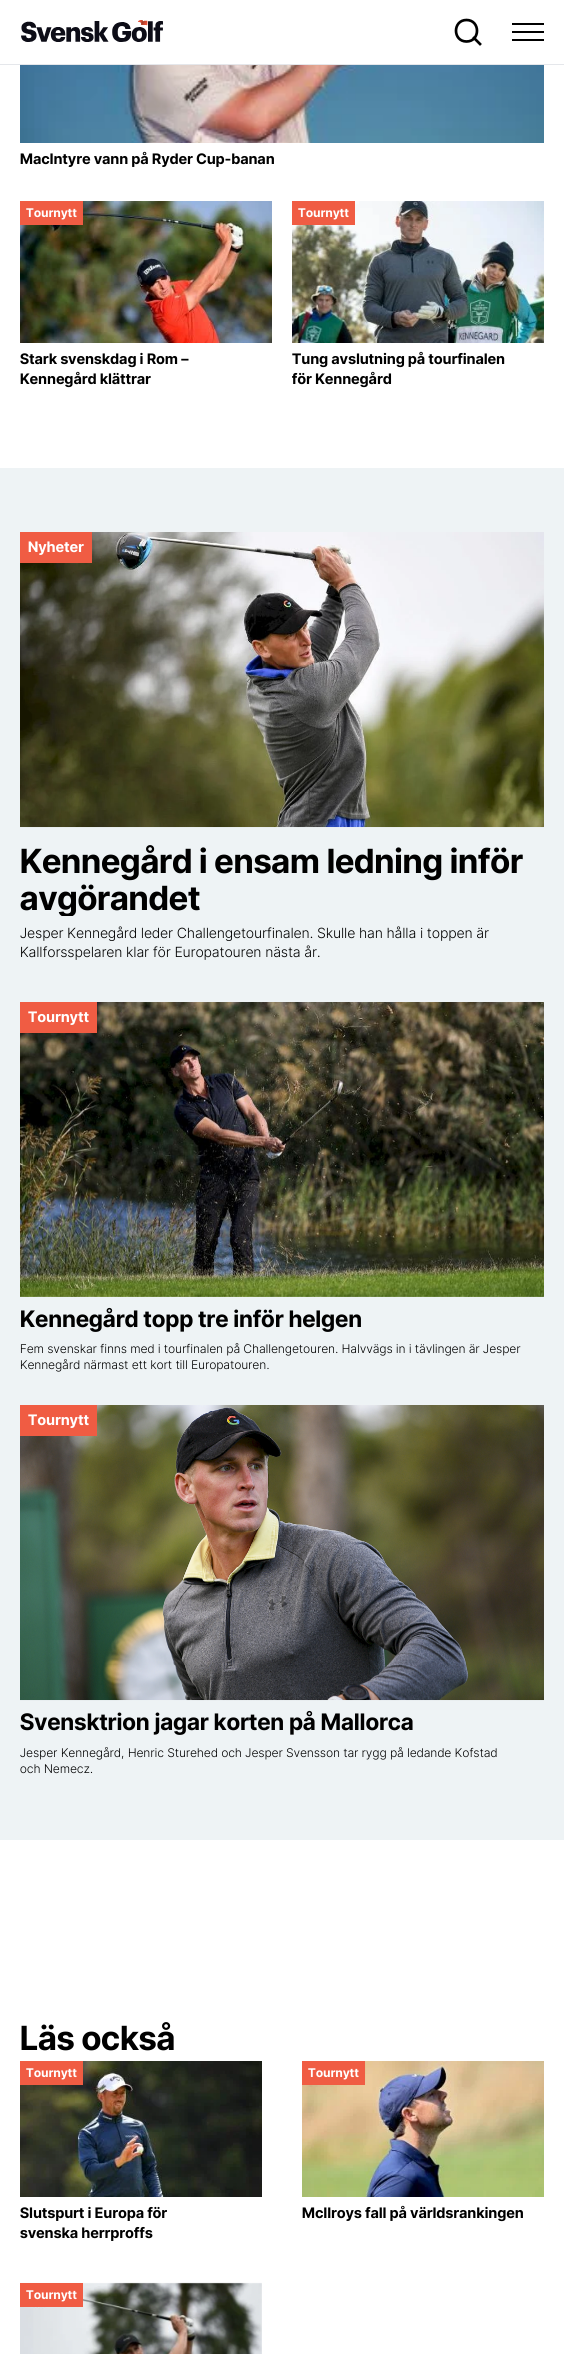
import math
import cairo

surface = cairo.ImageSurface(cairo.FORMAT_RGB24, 564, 2354)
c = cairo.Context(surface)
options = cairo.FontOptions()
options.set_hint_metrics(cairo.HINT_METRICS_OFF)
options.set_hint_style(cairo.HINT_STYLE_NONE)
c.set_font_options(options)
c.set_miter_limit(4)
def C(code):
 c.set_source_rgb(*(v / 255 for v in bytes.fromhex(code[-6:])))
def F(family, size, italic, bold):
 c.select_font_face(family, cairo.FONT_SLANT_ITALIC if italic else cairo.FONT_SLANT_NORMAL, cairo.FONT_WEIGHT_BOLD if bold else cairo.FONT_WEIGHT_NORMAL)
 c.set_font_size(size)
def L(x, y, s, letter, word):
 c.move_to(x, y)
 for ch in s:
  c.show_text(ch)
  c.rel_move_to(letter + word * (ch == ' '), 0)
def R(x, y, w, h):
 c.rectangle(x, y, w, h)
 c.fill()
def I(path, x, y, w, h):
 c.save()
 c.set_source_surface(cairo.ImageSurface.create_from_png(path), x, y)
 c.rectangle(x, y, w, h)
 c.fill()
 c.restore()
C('ffffff')
c.paint()
C('e5e7eb')
R(0,64,564,1)
I('1.png',21,20,142,22)
c.new_path()
c.move_to(466.5,41.5)
c.curve_to(480.5,41.5,480.5,20,466.5,20)
c.curve_to(452.5,20,452.5,41.5,466.5,41.5)
c.close_path()
C('000000')
c.set_line_width(2.7)
c.set_line_cap(cairo.LINE_CAP_ROUND)
c.set_line_join(cairo.LINE_JOIN_ROUND)
c.stroke()
c.new_path()
c.move_to(480,44)
c.line_to(474,38)
c.set_line_cap(cairo.LINE_CAP_SQUARE)
c.stroke()
R(512,23,32,2)
R(512,31,32,2)
R(512,39,32,2)
I('2.png',20,65,524,78)
F('Inter Tight',14.5,0,1)
L(20,164,'MacIntyre vann på Ryder Cup-banan',.32,0)
I('3.png',20,201,252,142)
C('f05c43')
R(20,201,63,24)
F('Inter Tight',12,0,1)
C('ffffff')
L(26,217,'Tournytt',.32,0)
F('Inter Tight',14.5,0,1)
C('000000')
L(20,364,'Stark svenskdag i Rom –',.32,0)
L(20,384,'Kennegård klättrar',.32,0)
I('4.png',292,201,252,142)
C('f05c43')
R(292,201,63,24)
F('Inter Tight',12,0,1)
C('ffffff')
L(298,217,'Tournytt',.32,0)
F('Inter Tight',14.5,0,1)
C('000000')
L(292,364,'Tung avslutning på tourfinalen',.32,0)
L(292,384,'för Kennegård',.32,0)
C('eef3f5')
R(0,468,564,1372)
I('5.png',20,532,524,296)
C('f05c43')
R(20,532,72,31)
C('ffffff')
L(28,552,'Nyheter',.32,0)
F('Inter Tight',33.3,0,1)
C('000000')
L(20,873,'Kennegård i ensam ledning inför',.32,0)
c.save()
c.rectangle(20,843,524,73)
c.clip()
L(20,910,'avgörandet',.32,0)
c.restore()
F('Inter Tight Light',14,0,0)
L(20,938,'Jesper Kennegård leder Challengetourfinalen. Skulle han hålla i toppen är',.32,0)
L(20,957,'Kallforsspelaren klar för Europatouren nästa år.',.32,0)
I('6.png',20,1002,524,295)
C('f05c43')
R(20,1002,77,31)
F('Inter Tight',14.5,0,1)
C('ffffff')
L(28,1022,'Tournytt',.32,0)
F('Inter Tight',22.75,0,1)
C('000000')
L(20,1327,'Kennegård topp tre inför helgen',.32,0)
F('Inter Tight Light',12,0,0)
L(20,1353,'Fem svenskar finns med i tourfinalen på Challengetouren. Halvvägs in i tävlingen är Jesper',.32,0)
L(20,1369,'Kennegård närmast ett kort till Europatouren.',.32,0)
I('7.png',20,1405,524,296)
C('f05c43')
R(20,1405,77,31)
F('Inter Tight',14.5,0,1)
C('ffffff')
L(28,1425,'Tournytt',.32,0)
F('Inter Tight',22.75,0,1)
C('000000')
L(20,1730,'Svensktrion jagar korten på Mallorca',.32,0)
F('Inter Tight Light',12,0,0)
L(20,1757,'Jesper Kennegård, Henric Sturehed och Jesper Svensson tar rygg på ledande Kofstad',.32,0)
L(20,1773,'och Nemecz.',.32,0)
F('Inter Tight',33.3,0,1)
L(20,2050,'Läs också',.32,0)
I('8.png',20,2061,242,136)
C('f05c43')
R(20,2061,63,24)
F('Inter Tight',12,0,1)
C('ffffff')
L(26,2077,'Tournytt',.32,0)
F('Inter Tight',14.5,0,1)
C('000000')
L(20,2218,'Slutspurt i Europa för',.32,0)
L(20,2238,'svenska herrproffs',.32,0)
I('9.png',302,2061,242,136)
C('f05c43')
R(302,2061,63,24)
F('Inter Tight',12,0,1)
C('ffffff')
L(308,2077,'Tournytt',.32,0)
F('Inter Tight',14.5,0,1)
C('000000')
L(302,2218,'McIlroys fall på världsrankingen',.32,0)
I('10.png',20,2282,242,72)
C('f05c43')
R(20,2283,63,24)
F('Inter Tight',12,0,1)
C('ffffff')
L(26,2299,'Tournytt',.32,0)
surface.write_to_png('o.png')
